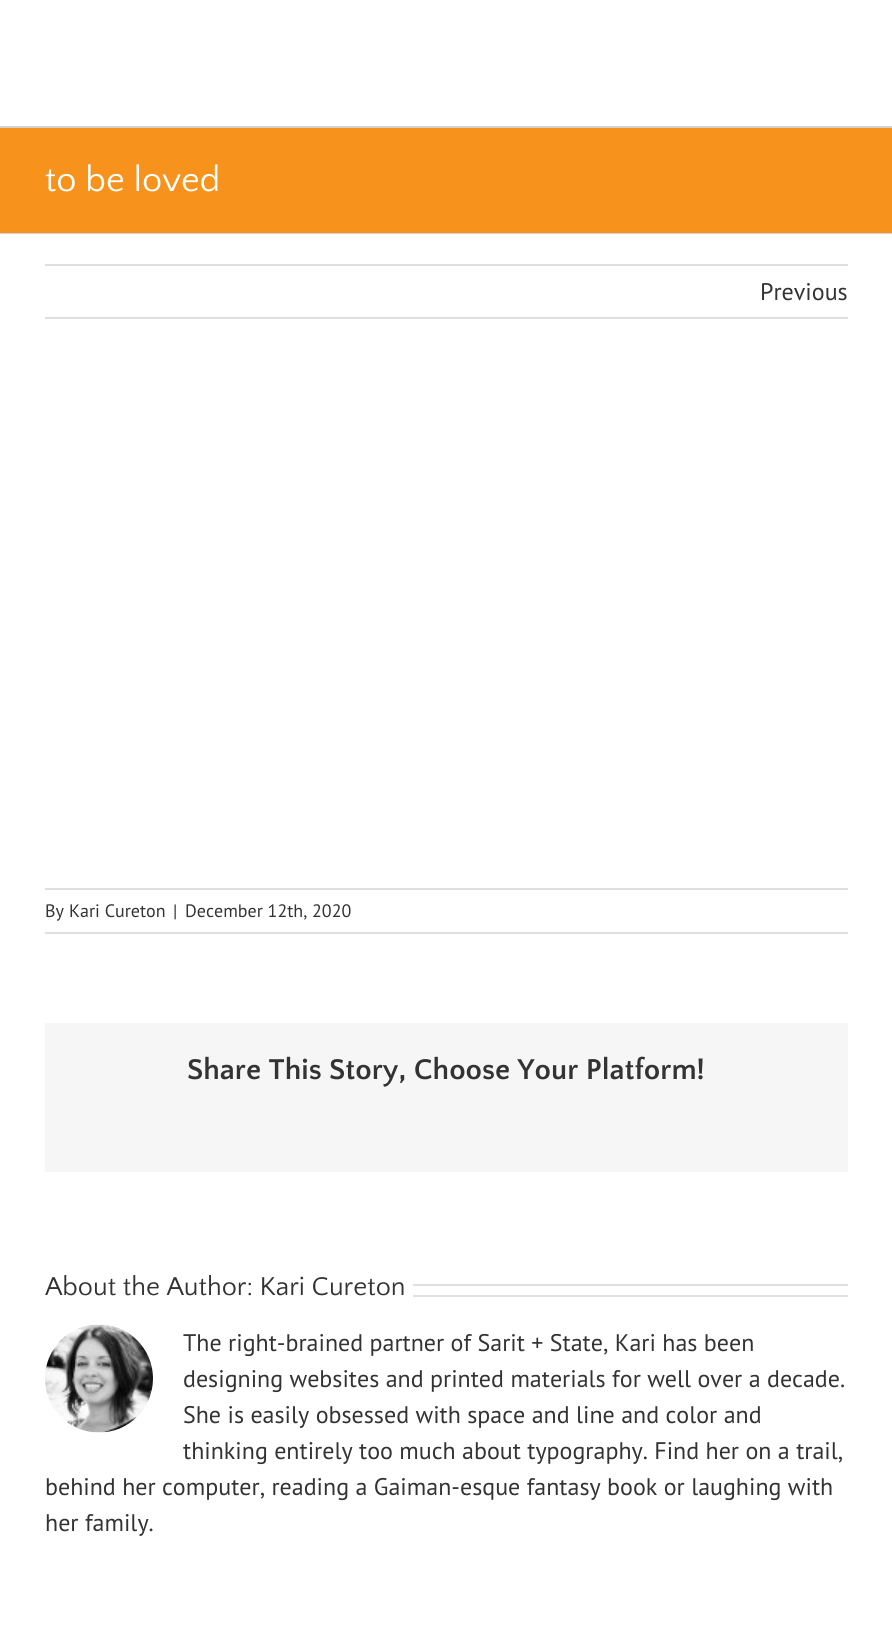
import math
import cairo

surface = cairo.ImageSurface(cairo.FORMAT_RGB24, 892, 1629)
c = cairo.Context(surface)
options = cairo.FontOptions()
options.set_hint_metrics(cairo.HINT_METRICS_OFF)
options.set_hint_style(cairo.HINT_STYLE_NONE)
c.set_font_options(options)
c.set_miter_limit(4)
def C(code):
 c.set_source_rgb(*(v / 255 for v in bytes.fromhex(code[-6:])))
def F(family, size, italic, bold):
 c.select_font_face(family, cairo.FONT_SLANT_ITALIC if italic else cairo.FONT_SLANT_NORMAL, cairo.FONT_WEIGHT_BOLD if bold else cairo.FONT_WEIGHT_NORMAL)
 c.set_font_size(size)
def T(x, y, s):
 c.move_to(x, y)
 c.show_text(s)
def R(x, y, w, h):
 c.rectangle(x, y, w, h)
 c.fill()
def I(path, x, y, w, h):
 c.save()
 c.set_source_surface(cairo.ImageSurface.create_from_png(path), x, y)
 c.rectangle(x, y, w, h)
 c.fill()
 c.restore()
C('ffffff')
c.paint()
C('f7931d')
R(0,128,892,105)
C('d2d3d4')
R(0,126,892,2)
R(0,233,892,1)
F('Quattrocento Sans',36,0,0)
C('ffffff')
T(45,191,'to be loved')
C('e0dede')
R(45,264,803,2)
R(45,317,803,2)
F('PT Sans',24,0,0)
C('333333')
T(760,300,'Previous')
C('e0dede')
R(45,888,803,2)
R(45,932,803,2)
F('PT Sans',18,0,0)
C('333333')
T(45,917,'By')
T(69,917,'Kari Cureton')
T(173,917,'|')
T(185,917,'December 12th, 2020')
C('f6f6f6')
R(45,1023,803,149)
F('Quattrocento Sans',30,0,1)
C('333333')
T(187,1079,'Share This Story, Choose Your Platform!')
F('Quattrocento Sans',27,0,0)
T(45,1295,'About the Author: Kari Cureton')
C('e0dede')
R(413,1284,435,2)
R(413,1295,435,2)
I('1.png',45,1324,108,109)
F('PT Sans',24,0,0)
C('333333')
T(183,1351,'The right-brained partner of Sarit + State, Kari has been')
T(183,1387,'designing websites and printed materials for well over a decade.')
T(183,1423,'She is easily obsessed with space and line and color and')
T(183,1459,'thinking entirely too much about typography. Find her on a trail,')
T(45,1495,'behind her computer, reading a Gaiman-esque fantasy book or laughing with')
T(45,1531,'her family.')
surface.write_to_png('o.png')
